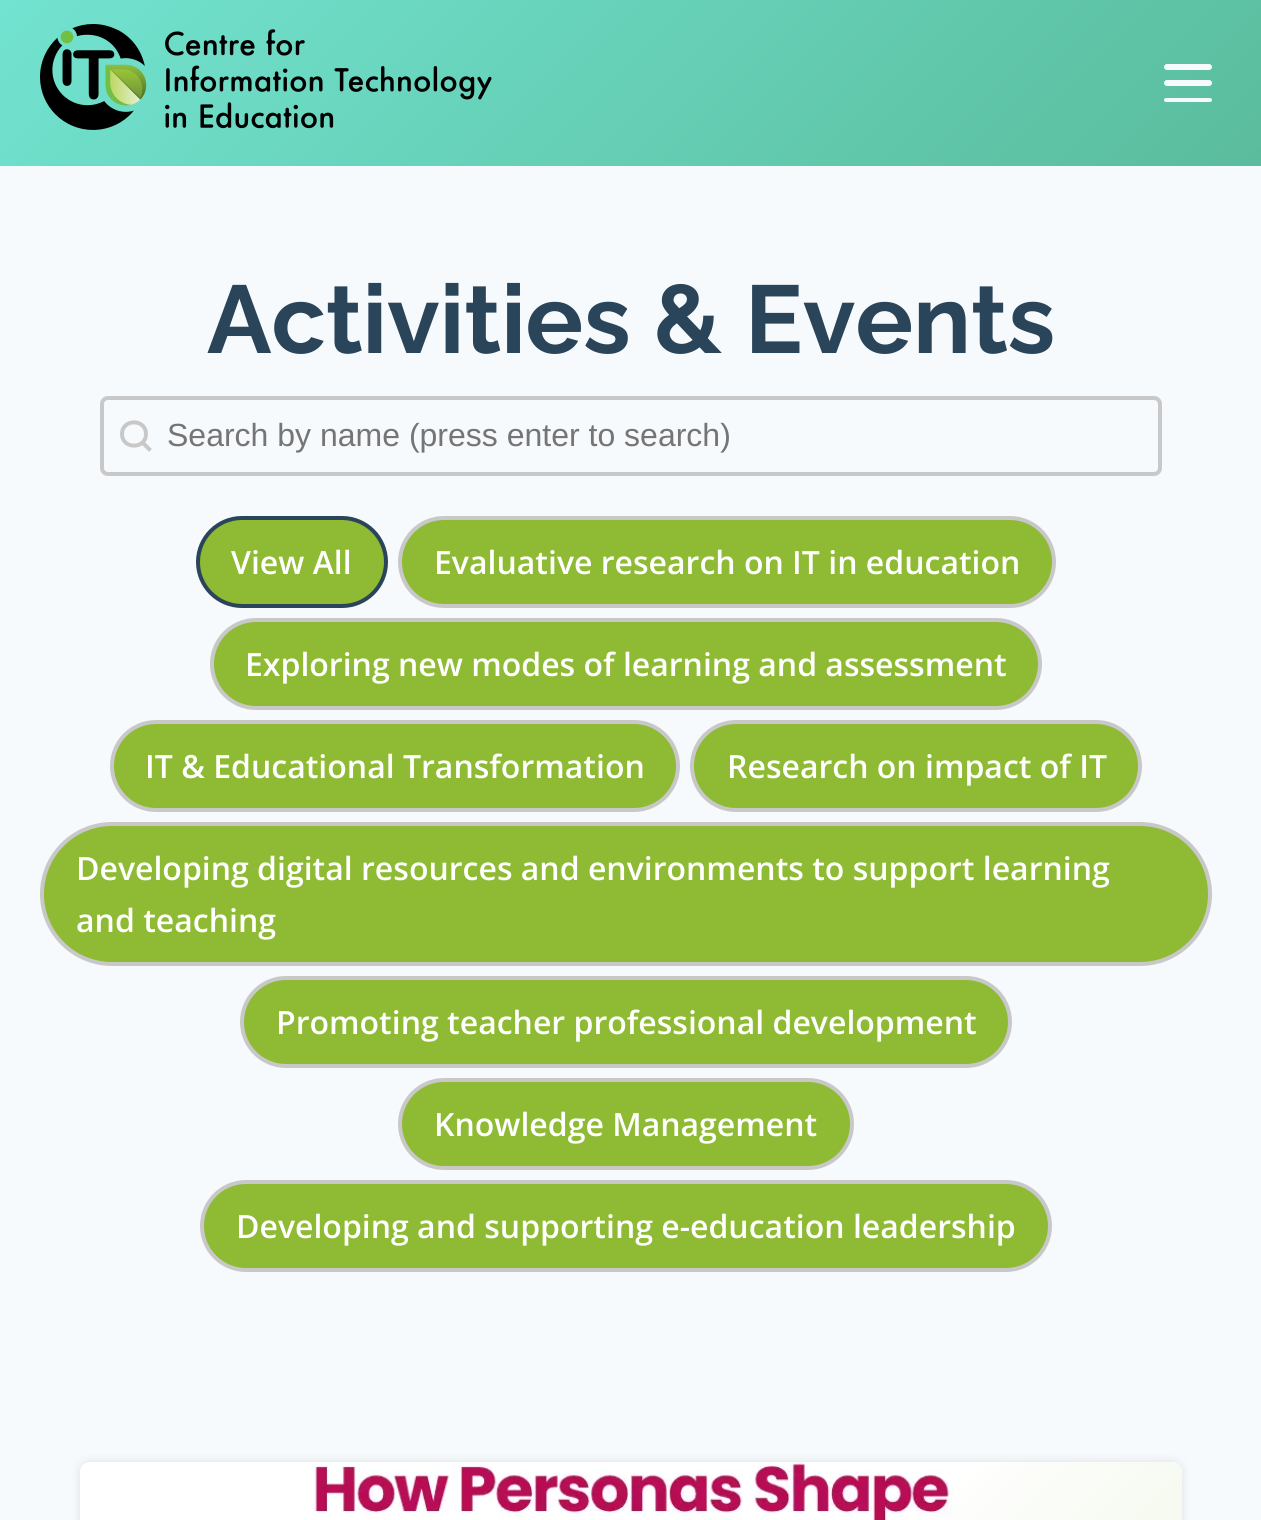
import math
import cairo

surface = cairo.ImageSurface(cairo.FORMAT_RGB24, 1261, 1520)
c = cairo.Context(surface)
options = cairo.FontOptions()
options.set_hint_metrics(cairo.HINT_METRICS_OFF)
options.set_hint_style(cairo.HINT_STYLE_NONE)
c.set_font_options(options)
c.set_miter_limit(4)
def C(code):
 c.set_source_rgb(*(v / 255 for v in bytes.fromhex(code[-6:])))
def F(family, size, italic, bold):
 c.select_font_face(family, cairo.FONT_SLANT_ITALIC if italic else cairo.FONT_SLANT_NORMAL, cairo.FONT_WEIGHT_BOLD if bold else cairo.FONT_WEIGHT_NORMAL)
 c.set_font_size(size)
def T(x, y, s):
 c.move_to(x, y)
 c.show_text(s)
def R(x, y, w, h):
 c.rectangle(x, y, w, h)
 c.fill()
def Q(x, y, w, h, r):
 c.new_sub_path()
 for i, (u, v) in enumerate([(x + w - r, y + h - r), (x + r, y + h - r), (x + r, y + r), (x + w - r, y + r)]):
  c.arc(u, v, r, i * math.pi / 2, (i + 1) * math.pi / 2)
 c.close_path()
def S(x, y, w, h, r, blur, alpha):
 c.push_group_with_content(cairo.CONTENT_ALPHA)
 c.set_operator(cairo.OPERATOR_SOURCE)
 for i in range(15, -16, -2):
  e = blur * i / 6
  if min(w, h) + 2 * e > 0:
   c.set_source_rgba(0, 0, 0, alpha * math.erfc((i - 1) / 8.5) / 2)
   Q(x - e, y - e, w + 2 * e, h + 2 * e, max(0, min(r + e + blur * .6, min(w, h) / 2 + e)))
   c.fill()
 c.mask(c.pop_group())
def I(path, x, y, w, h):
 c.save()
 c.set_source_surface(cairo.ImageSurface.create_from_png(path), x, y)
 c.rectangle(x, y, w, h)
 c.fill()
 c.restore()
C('f6fafd')
c.paint()
gradient = cairo.LinearGradient(274,-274,988,440)
gradient.add_color_stop_rgba(0,0.447,0.89,0.816,1)
gradient.add_color_stop_rgba(1,0.353,0.737,0.612,1)
c.set_source(gradient)
R(0,0,1261,166)
I('1.png',40,24,452,106)
C('f6fafd')
Q(1164,64,48,6,3)
c.fill()
Q(1164,80,48,6,3)
c.fill()
Q(1164,98,48,4,2)
c.fill()
F('Raleway',96,0,1)
C('2a445a')
T(207,353,'Activities & Events')
Q(102,398,1058,76,6)
C('c8c8c8')
c.set_line_width(4)
c.stroke()
c.new_path()
c.move_to(143.5,443.5)
c.line_to(150.5,450.5)
c.close_path()
c.move_to(122,434)
c.curve_to(122,418.5,146,418.5,146,434)
c.curve_to(146,449.5,122,449.5,122,434)
c.close_path()
c.stroke()
F('Liberation Sans',32,0,0)
C('757575')
T(167,446,'Search by name (press enter to search)')
C('8eba34')
Q(198,518,188,88,44)
c.fill_preserve()
C('2a445a')
c.stroke()
F('Open Sans SemiBold',32,0,0)
C('ffffff')
T(231,574,'View All')
C('8eba34')
Q(400,518,654,88,44)
c.fill_preserve()
C('c8c8c8')
c.stroke()
C('ffffff')
T(434,574,'Evaluative research on IT in education')
C('8eba34')
Q(212,620,828,88,44)
c.fill_preserve()
C('c8c8c8')
c.stroke()
C('ffffff')
T(245,676,'Exploring new modes of learning and assessment')
C('8eba34')
Q(112,722,566,88,44)
c.fill_preserve()
C('c8c8c8')
c.stroke()
C('ffffff')
T(145,778,'IT & Educational Transformation')
C('8eba34')
Q(692,722,448,88,44)
c.fill_preserve()
C('c8c8c8')
c.stroke()
C('ffffff')
T(727,778,'Research on impact of IT')
C('8eba34')
Q(42,824,1168,140,70)
c.fill_preserve()
C('c8c8c8')
c.stroke()
C('ffffff')
T(76,880,'Developing digital resources and environments to support learning')
T(76,932,'and teaching')
C('8eba34')
Q(242,978,768,88,44)
c.fill_preserve()
C('c8c8c8')
c.stroke()
C('ffffff')
T(276,1034,'Promoting teacher professional development')
C('8eba34')
Q(400,1080,452,88,44)
c.fill_preserve()
C('c8c8c8')
c.stroke()
C('ffffff')
T(434,1136,'Knowledge Management')
C('8eba34')
Q(202,1182,848,88,44)
c.fill_preserve()
C('c8c8c8')
c.stroke()
C('ffffff')
T(236,1238,'Developing and supporting e-education leadership')
C('000000')
S(80,1462,1102,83,10,5,.1)
C('ffffff')
c.new_path()
c.move_to(90,1462)
c.line_to(1172,1462)
c.curve_to(1177.5,1462,1182,1466.5,1182,1472)
c.line_to(1182,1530)
c.line_to(80,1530)
c.line_to(80,1472)
c.curve_to(80,1466.5,84.5,1462,90,1462)
c.close_path()
c.fill()
I('2.png',313,1462,869,58)
surface.write_to_png('o.png')
